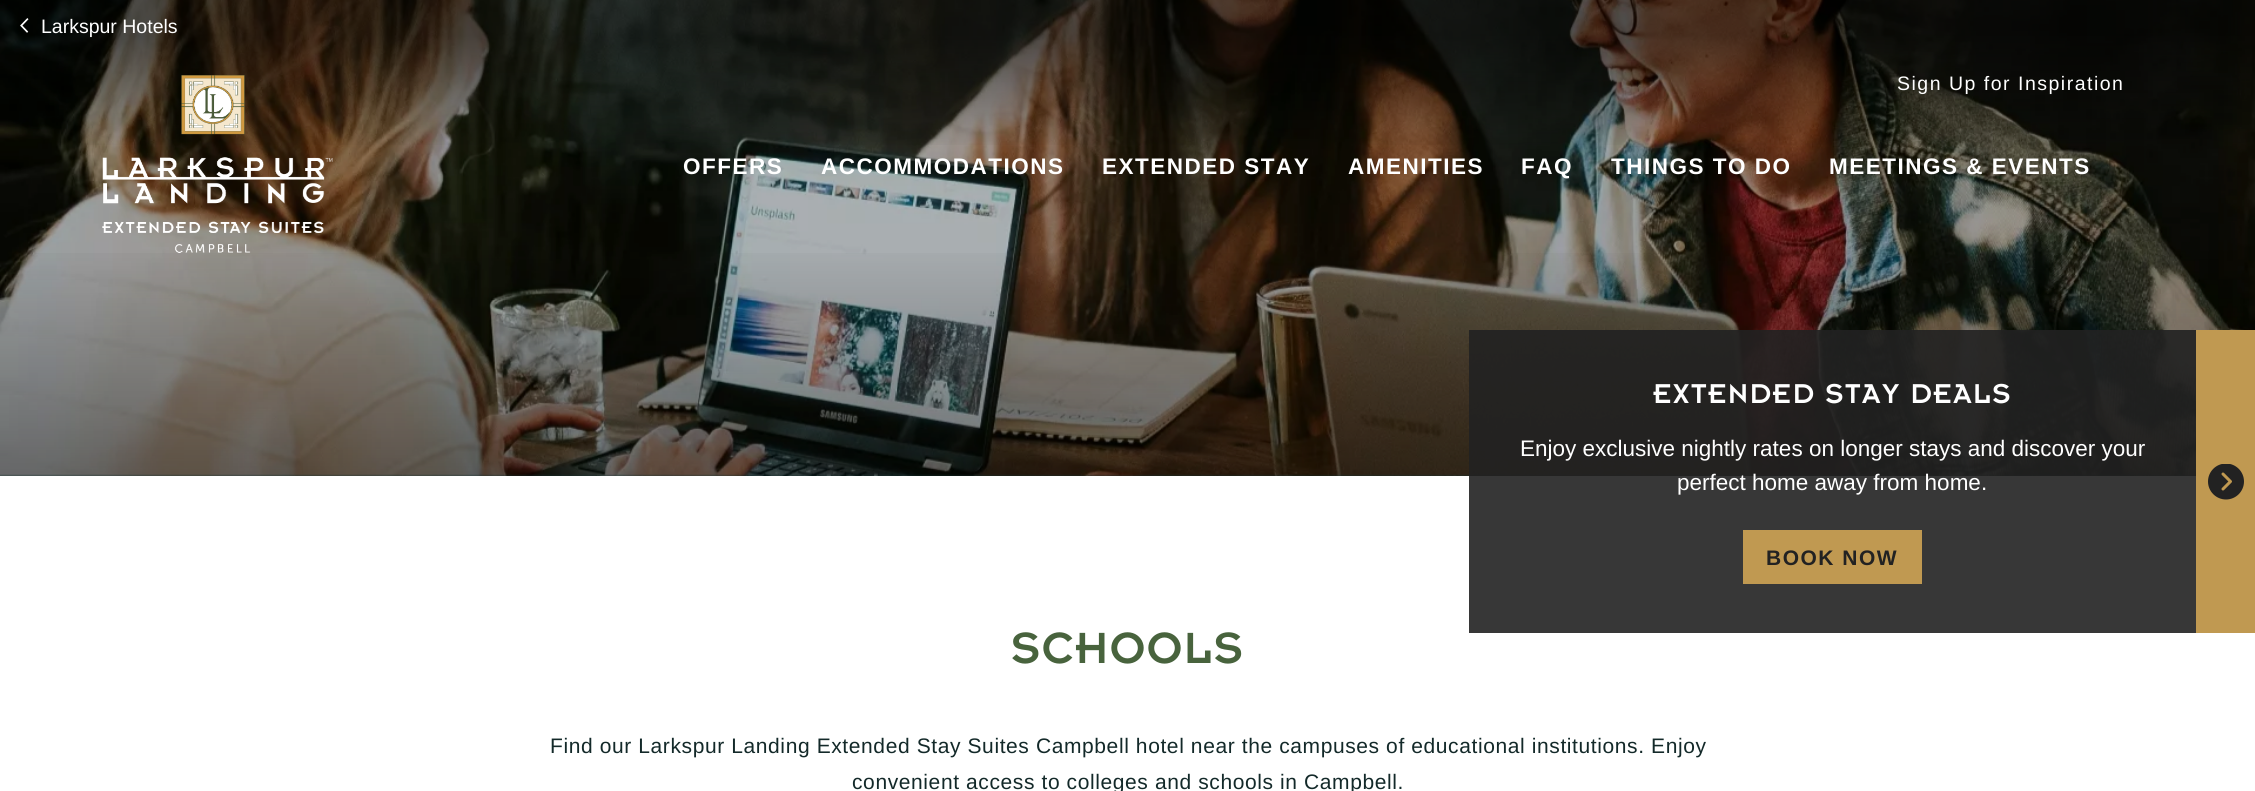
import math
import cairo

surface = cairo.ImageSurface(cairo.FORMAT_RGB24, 2255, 791)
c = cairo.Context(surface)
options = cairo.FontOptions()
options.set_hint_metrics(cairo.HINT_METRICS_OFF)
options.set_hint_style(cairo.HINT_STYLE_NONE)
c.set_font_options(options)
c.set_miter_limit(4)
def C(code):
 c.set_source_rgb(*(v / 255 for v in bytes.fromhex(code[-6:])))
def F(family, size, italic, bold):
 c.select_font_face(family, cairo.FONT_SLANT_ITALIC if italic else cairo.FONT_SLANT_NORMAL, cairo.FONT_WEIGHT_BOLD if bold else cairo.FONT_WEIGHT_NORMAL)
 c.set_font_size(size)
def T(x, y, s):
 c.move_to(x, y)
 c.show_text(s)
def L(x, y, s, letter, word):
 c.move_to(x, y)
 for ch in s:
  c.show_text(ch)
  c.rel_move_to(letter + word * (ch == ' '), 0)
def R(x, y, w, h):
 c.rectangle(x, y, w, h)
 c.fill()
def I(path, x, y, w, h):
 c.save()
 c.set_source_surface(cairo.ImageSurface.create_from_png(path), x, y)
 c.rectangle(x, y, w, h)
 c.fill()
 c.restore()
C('ffffff')
c.paint()
C('1e4d4d')
R(0,474,2196,2)
I('4.png',0,0,2255,476)
gradient = cairo.LinearGradient(1128,0,1128,150)
gradient.add_color_stop_rgba(.24,0,0,0,.5)
gradient.add_color_stop_rgba(1,0,0,0,0)
c.set_source(gradient)
R(0,0,2255,145)
I('1.png',20,18,9,15)
F('Liberation Sans',19.5,0,0)
C('ffffff')
T(41,33,'Larkspur Hotels')
I('2.png',102,75,231,178)
L(1897,90,'Sign Up for Inspiration',1.5,0)
F('Liberation Sans',22.5,0,1)
L(683,174,'OFFERS',1.5,0)
L(821,174,'ACCOMMODATIONS',1.5,0)
L(1102,174,'EXTENDED STAY',1.5,0)
L(1348,174,'AMENITIES',1.5,0)
L(1521,174,'FAQ',1.5,0)
L(1611,174,'THINGS TO DO',1.5,0)
L(1829,174,'MEETINGS & EVENTS',1.5,0)
gradient = cairo.LinearGradient(1128,0,1128,476)
gradient.add_color_stop_rgba(.5,0,0,0,0)
gradient.add_color_stop_rgba(1,0,0,0,.35)
c.set_source(gradient)
R(0,253,2255,223)
c.set_source_rgba(0.133,0.133,0.133,0.9)
R(1469,330,727,303)
F('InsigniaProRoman',30,0,0)
C('ffffff')
L(1653,403,'EXTENDED STAY DEALS',1.5,0)
F('Liberation Sans',22.5,0,0)
T(1520,456,'Enjoy exclusive nightly rates on longer stays and discover your')
T(1677,490,'perfect home away from home.')
C('c09951')
R(1743,530,179,54)
F('Liberation Sans',21,0,1)
C('222222')
L(1766,565,'BOOK NOW',1.5,0)
C('c09951')
R(2196,330,59,303)
I('3.png',2208,464,36,36)
F('InsigniaProRoman',48,0,0)
C('48633d')
L(1011,663,'SCHOOLS',1.5,0)
F('Liberation Sans',21,0,0)
C('132929')
L(550,753,'Find our Larkspur Landing Extended Stay Suites Campbell hotel near the campuses of educational institutions. Enjoy',.6,0)
L(852,789,'convenient access to colleges and schools in Campbell.',.6,0)
surface.write_to_png('o.png')
